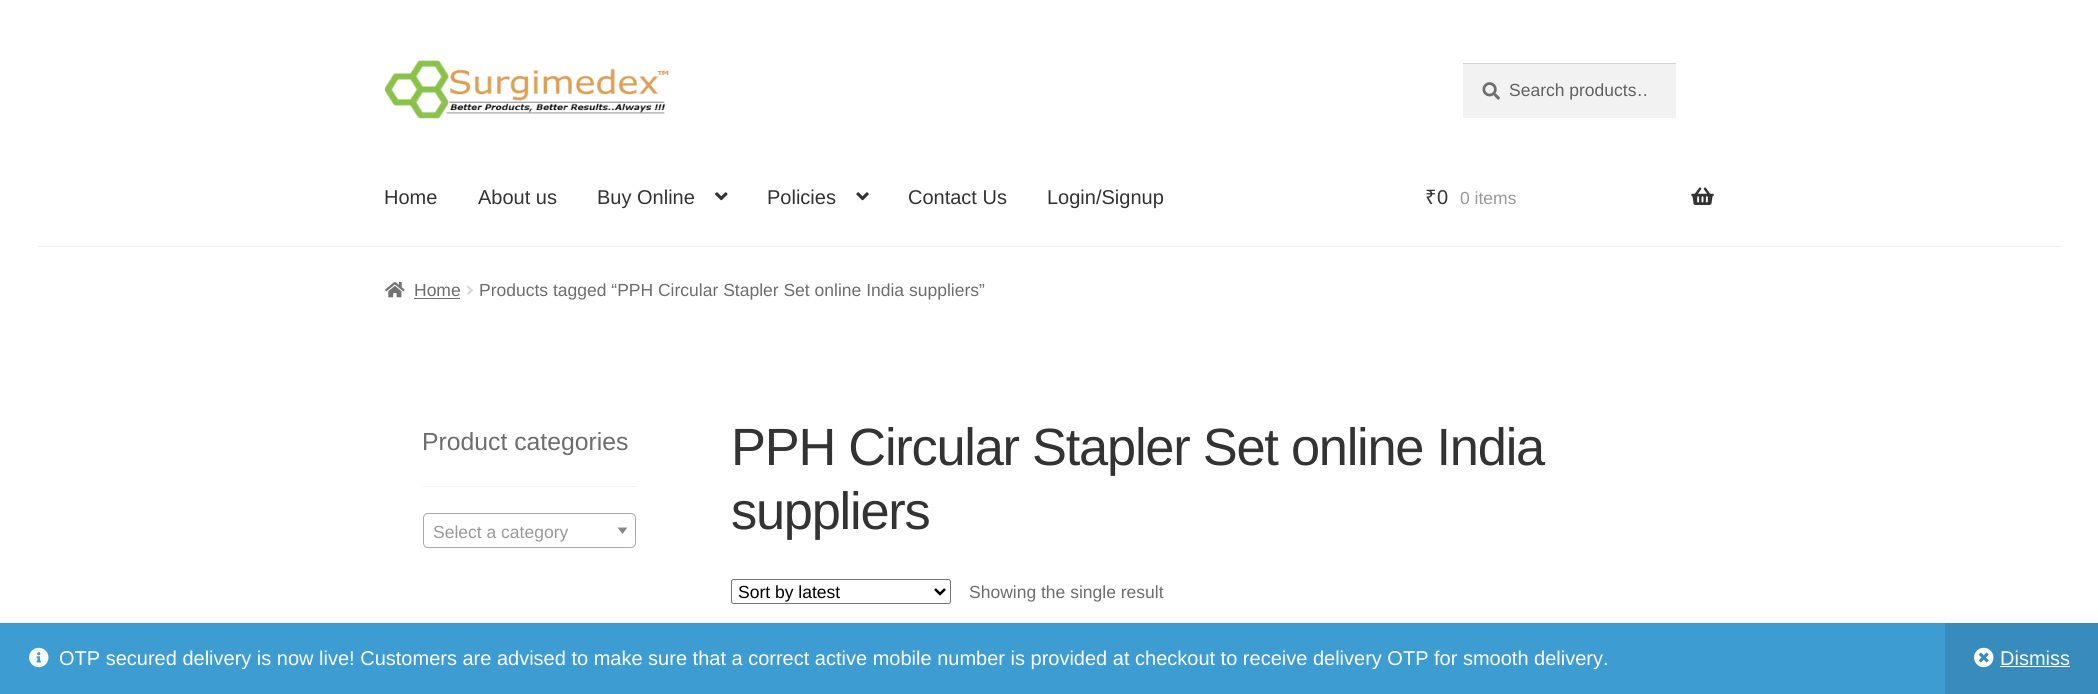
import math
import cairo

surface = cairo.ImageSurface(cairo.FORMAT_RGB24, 2098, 694)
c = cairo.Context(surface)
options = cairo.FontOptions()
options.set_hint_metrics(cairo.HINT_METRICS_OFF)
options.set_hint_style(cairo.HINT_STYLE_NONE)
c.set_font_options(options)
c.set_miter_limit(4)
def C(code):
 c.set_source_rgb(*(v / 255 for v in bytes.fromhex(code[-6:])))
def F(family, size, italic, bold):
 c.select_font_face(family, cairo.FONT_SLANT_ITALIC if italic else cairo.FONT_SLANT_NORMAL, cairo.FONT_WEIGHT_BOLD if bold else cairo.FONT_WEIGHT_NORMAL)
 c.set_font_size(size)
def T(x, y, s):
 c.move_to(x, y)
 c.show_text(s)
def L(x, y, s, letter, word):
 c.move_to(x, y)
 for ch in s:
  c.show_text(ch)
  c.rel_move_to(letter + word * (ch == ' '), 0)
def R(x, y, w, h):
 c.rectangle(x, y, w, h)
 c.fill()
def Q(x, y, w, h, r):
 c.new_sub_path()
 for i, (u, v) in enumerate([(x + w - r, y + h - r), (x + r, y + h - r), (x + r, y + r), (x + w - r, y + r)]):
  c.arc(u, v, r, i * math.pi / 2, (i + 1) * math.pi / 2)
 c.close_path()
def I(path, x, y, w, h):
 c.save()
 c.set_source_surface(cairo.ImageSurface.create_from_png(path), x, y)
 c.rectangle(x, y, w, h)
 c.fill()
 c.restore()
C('ffffff')
c.paint()
C('f0f0f0')
R(38,246,2023,1)
I('1.png',385,60,284,59)
C('f2f2f2')
R(1463,64,213,54)
I('2.png',1482,82,18,18)
C('d4d4d4')
R(1463,63,213,1)
c.save()
c.rectangle(1509,80,139,20)
c.clip()
F('Liberation Sans',17.5,0,0)
C('616161')
T(1509,96,'Search products…')
c.restore()
F('Liberation Sans',20,0,0)
C('333333')
T(384,204,'Home')
T(478,204,'About us')
T(597,204,'Buy Online')
I('3.png',715,192,13,9)
T(767,204,'Policies')
I('4.png',856,192,13,9)
T(908,204,'Contact Us')
T(1047,204,'Login/Signup')
F('Noto Sans',20,0,0)
T(1425,204,'₹')
F('Liberation Sans',20,0,0)
T(1437,204,'0')
F('Liberation Sans',17.5,0,0)
C('999999')
T(1460,204,'0 items')
I('5.png',1691,187,23,18)
I('6.png',385,282,20,16)
C('6d6d6d')
T(414,296,'Home')
C('727272')
R(414,298,46,1)
I('7.png',467,285,6,10)
C('6d6d6d')
T(479,296,'Products tagged “PPH Circular Stapler Set online India suppliers”')
C('f2f2f2')
R(423,486,213,1)
F('Liberation Sans',24.75,0,0)
C('6d6d6d')
T(422,450,'Product categories')
Q(423.5,513.5,212,34,4.5)
C('aaaaaa')
c.set_line_width(1)
c.stroke()
F('Liberation Sans',17.5,0,0)
C('999999')
T(433,538,'Select a category')
C('888888')
c.new_path()
c.move_to(617.5,527.5)
c.line_to(627.5,527.5)
c.line_to(622.5,534)
c.close_path()
c.fill()
F('Liberation Sans',52.4,0,0)
C('333333')
L(731,465,'PPH Circular Stapler Set online India',-1.25,0)
L(731,529,'suppliers',-1.25,0)
Q(731.5,579.5,219,24,2)
C('767676')
c.stroke()
c.new_path()
c.move_to(935,589)
c.line_to(940,594)
c.line_to(945,589)
C('000000')
c.set_line_width(2.5)
c.stroke()
F('Liberation Sans',17.5,0,0)
T(738,598,'Sort by latest')
C('6d6d6d')
T(969,598,'Showing the single result')
C('3d9cd2')
R(0,623,1945,71)
I('8.png',29,647,20,21)
F('Liberation Sans',20,0,0)
C('ffffff')
T(59,665,'OTP secured delivery is now live! Customers are advised to make sure that a correct active mobile number is provided at checkout to receive delivery OTP for smooth delivery.')
C('378cbd')
R(1945,623,153,71)
I('9.png',1974,647,20,21)
C('ffffff')
T(2000,665,'Dismiss')
R(2000,666,70,1)
surface.write_to_png('o.png')
